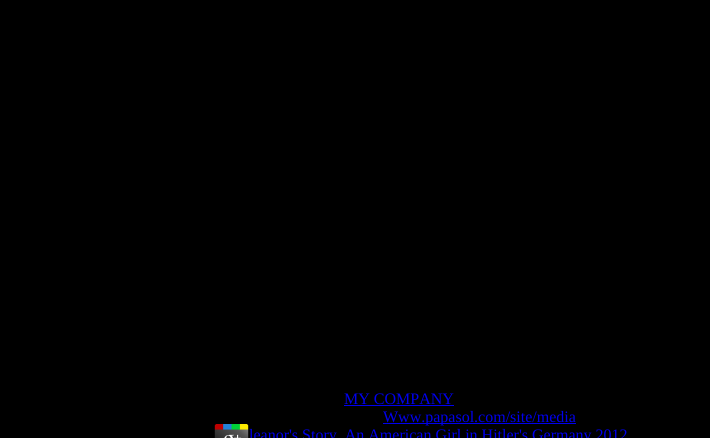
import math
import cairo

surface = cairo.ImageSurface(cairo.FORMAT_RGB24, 710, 438)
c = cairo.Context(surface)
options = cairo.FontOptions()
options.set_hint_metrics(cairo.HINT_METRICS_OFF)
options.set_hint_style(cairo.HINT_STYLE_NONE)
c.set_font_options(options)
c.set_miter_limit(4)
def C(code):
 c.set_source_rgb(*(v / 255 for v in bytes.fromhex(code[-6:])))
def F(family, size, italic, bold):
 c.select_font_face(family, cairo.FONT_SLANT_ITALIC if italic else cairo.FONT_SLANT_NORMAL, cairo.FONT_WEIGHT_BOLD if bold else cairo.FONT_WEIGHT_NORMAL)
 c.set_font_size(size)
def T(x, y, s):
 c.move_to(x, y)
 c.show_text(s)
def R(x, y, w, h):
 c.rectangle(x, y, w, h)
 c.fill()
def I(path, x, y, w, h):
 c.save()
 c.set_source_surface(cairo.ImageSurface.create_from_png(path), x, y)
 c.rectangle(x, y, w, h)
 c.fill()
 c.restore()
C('000000')
c.paint()
I('1.png',214,424,35,14)
F('Liberation Serif',16,0,0)
C('0000ee')
T(344,404,'MY COMPANY')
R(344,405,110,1)
R(383,423,193,1)
T(383,422,'Www.papasol.com/site/media')
T(249,440,'leanor\'s Story. An American Girl in Hitler\'s Germany 2012')
surface.write_to_png('o.png')
